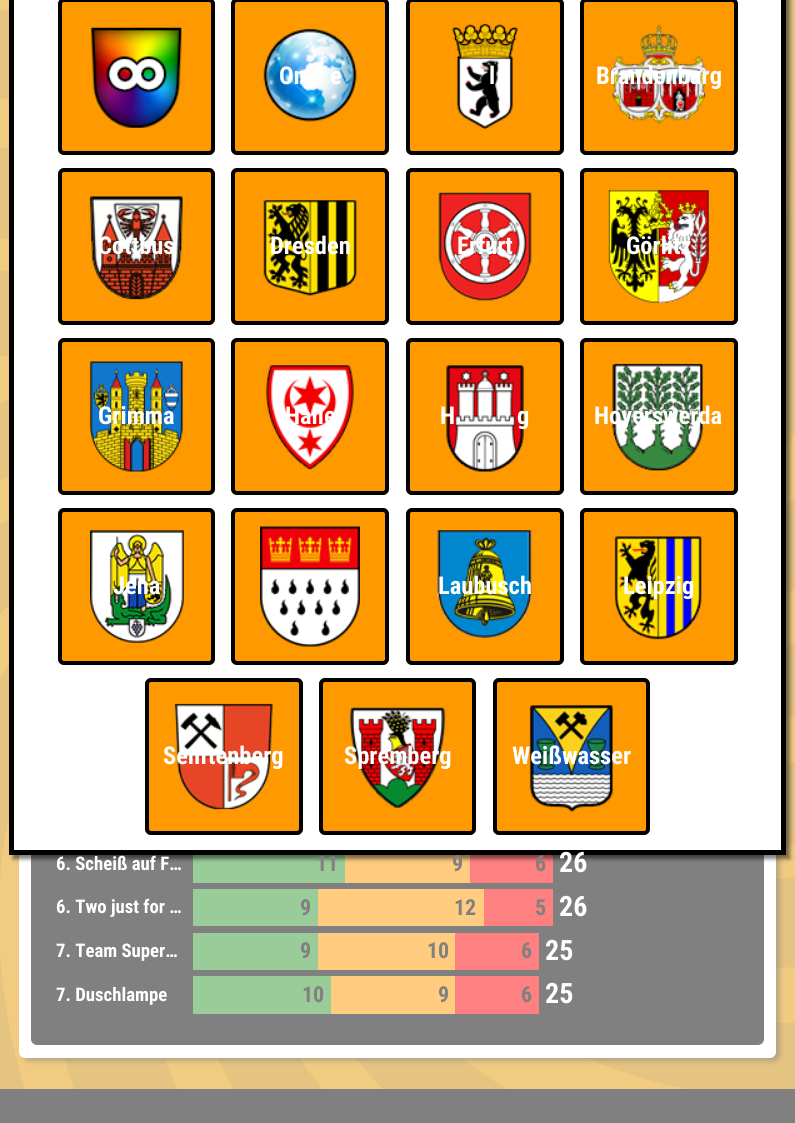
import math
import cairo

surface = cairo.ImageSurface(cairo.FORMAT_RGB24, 795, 1123)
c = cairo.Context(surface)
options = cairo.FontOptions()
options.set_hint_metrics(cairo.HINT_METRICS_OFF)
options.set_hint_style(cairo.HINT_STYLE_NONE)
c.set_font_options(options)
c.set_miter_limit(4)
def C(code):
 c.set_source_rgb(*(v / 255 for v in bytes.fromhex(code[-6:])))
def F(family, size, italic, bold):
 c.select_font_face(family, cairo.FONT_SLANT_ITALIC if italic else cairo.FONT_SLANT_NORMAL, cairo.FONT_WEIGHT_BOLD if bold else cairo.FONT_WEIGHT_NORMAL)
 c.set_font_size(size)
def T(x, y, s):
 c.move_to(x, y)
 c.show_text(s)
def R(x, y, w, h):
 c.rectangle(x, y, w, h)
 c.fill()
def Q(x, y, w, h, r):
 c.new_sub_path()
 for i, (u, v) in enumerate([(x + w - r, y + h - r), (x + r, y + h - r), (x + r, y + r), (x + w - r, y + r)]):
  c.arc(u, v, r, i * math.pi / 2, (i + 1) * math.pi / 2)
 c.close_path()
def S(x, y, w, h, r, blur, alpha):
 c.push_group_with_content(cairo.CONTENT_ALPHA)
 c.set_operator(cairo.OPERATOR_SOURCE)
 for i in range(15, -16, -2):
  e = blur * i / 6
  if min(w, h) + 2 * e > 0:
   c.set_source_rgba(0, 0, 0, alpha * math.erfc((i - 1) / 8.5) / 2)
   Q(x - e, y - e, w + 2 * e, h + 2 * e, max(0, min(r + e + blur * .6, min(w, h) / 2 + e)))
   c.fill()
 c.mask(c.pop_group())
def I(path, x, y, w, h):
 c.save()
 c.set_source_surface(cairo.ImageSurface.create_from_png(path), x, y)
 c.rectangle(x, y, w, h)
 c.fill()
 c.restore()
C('f1cb80')
c.paint()
I('1.png',0,0,795,1089)
C('808080')
S(23,10,757,1051,6,2.5,.5)
C('ffffff')
Q(19,6,757,1052,6)
c.fill()
C('808080')
Q(31,470,733,575,6)
c.fill()
C('99cc99')
R(193,855,152,28)
C('ffcc80')
R(345,855,125,28)
C('ff8080')
R(470,855,83,28)
C('000000')
S(13,-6,777,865,0,2,.5)
F('Roboto Condensed',22,0,1)
C('808080')
T(452,871,'9')
T(535,871,'6')
C('ffffff')
c.rectangle(11.5,-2.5,772,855)
c.fill_preserve()
C('000000')
c.set_line_width(5)
c.stroke()
C('ff9900')
Q(58,-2,157,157,6)
c.fill()
I('2.png',91,27,91,101)
Q(60,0,153,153,4)
C('000000')
c.set_line_width(4)
c.stroke()
C('ff9900')
Q(231,-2,158,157,6)
c.fill()
I('3.png',263,28,94,94)
Q(233,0,154,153,4)
C('000000')
c.stroke()
F('Roboto Condensed',24.5,0,1)
C('ffffff')
T(279,84,'On')
T(330,84,'e')
C('ff9900')
Q(406,-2,158,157,6)
c.fill()
I('4.png',452,23,66,107)
Q(408,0,154,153,4)
C('000000')
c.stroke()
C('ffffff')
T(489,84,'l')
C('ff9900')
Q(580,-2,158,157,6)
c.fill()
I('5.png',609,25,99,100)
Q(582,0,154,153,4)
C('000000')
c.stroke()
C('ffffff')
T(596,84,'Brandenburg')
C('ff9900')
Q(58,168,157,157,6)
c.fill()
I('6.png',89,196,94,104)
Q(60,170,153,153,4)
C('000000')
c.stroke()
C('ffffff')
T(98,254,'Cottbus')
C('ff9900')
Q(231,168,158,157,6)
c.fill()
I('7.png',263,200,94,96)
Q(233,170,154,153,4)
C('000000')
c.stroke()
C('ffffff')
T(270,254,'Dresden')
C('ff9900')
Q(406,168,158,157,6)
c.fill()
I('8.png',438,192,94,109)
Q(408,170,154,153,4)
C('000000')
c.stroke()
C('ffffff')
T(457,254,'Erfurt')
C('ff9900')
Q(580,168,158,157,6)
c.fill()
I('9.png',608,190,101,113)
Q(582,170,154,153,4)
C('000000')
c.stroke()
C('ffffff')
T(626,254,'Görlitz')
C('ff9900')
Q(58,338,157,157,6)
c.fill()
I('10.png',89,361,94,111)
Q(60,340,153,153,4)
C('000000')
c.stroke()
C('ffffff')
T(98,424,'Grimma')
C('ff9900')
Q(231,338,158,157,6)
c.fill()
I('11.png',266,365,88,105)
Q(233,340,154,153,4)
C('000000')
c.stroke()
C('ffffff')
T(285,424,'Halle')
C('ff9900')
Q(406,338,158,157,6)
c.fill()
I('12.png',446,365,78,107)
Q(408,340,154,153,4)
C('000000')
c.stroke()
C('ffffff')
T(440,424,'H')
T(517,424,'g')
C('ff9900')
Q(580,338,158,157,6)
c.fill()
I('13.png',612,363,91,108)
Q(582,340,154,153,4)
C('000000')
c.stroke()
C('ffffff')
T(594,424,'Hoyerswerda')
C('ff9900')
Q(58,508,157,157,6)
c.fill()
I('14.png',90,530,94,113)
Q(60,510,153,153,4)
C('000000')
c.stroke()
C('ffffff')
T(113,594,'Jena')
C('ff9900')
Q(231,508,158,157,6)
c.fill()
I('15.png',260,526,100,121)
Q(233,510,154,153,4)
C('000000')
c.stroke()
C('ff9900')
Q(406,508,158,157,6)
c.fill()
I('16.png',437,530,95,108)
Q(408,510,154,153,4)
C('000000')
c.stroke()
C('ffffff')
T(438,594,'Laubusch')
C('ff9900')
Q(580,508,158,157,6)
c.fill()
I('17.png',614,536,88,104)
Q(582,510,154,153,4)
C('000000')
c.stroke()
C('ffffff')
T(623,594,'Leipzig')
C('ff9900')
Q(145,678,158,157,6)
c.fill()
I('18.png',174,703,99,107)
Q(147,680,154,153,4)
C('000000')
c.stroke()
C('ffffff')
T(163,764,'Senftenberg')
C('ff9900')
Q(319,678,157,157,6)
c.fill()
I('19.png',349,707,97,101)
Q(321,680,153,153,4)
C('000000')
c.stroke()
C('ffffff')
T(344,764,'Spremberg')
C('ff9900')
Q(493,678,157,157,6)
c.fill()
I('20.png',529,705,84,107)
Q(495,680,153,153,4)
C('000000')
c.stroke()
C('ffffff')
T(512,764,'Weißwasser')
F('Roboto Condensed',18.75,0,1)
T(56,870,'6. Scheiß auf F…')
F('Roboto Condensed',22,0,1)
C('808080')
T(316,871,'11')
F('Roboto Condensed',28,0,1)
C('ffffff')
T(559,872,'26')
F('Roboto Condensed',18.75,0,1)
T(56,913,'6. Two just for …')
C('99cc99')
R(193,889,125,37)
F('Roboto Condensed',22,0,1)
C('808080')
T(300,915,'9')
C('ffcc80')
R(318,889,166,37)
C('808080')
T(454,915,'12')
C('ff8080')
R(484,889,69,37)
C('808080')
T(535,915,'5')
F('Roboto Condensed',28,0,1)
C('ffffff')
T(559,916,'26')
F('Roboto Condensed',18.75,0,1)
T(56,957,'7. Team Super…')
C('99cc99')
R(193,933,125,37)
F('Roboto Condensed',22,0,1)
C('808080')
T(300,958,'9')
C('ffcc80')
R(318,933,137,37)
C('808080')
T(427,958,'10')
C('ff8080')
R(455,933,84,37)
C('808080')
T(521,958,'6')
F('Roboto Condensed',28,0,1)
C('ffffff')
T(545,960,'25')
F('Roboto Condensed',18.75,0,1)
T(56,1001,'7. Duschlampe')
C('99cc99')
R(193,976,138,38)
F('Roboto Condensed',22,0,1)
C('808080')
T(302,1002,'10')
C('ffcc80')
R(331,976,124,38)
C('808080')
T(438,1002,'9')
C('ff8080')
R(455,976,84,38)
C('808080')
T(521,1002,'6')
F('Roboto Condensed',28,0,1)
C('ffffff')
T(545,1003,'25')
C('808080')
R(0,1089,795,34)
surface.write_to_png('o.png')
